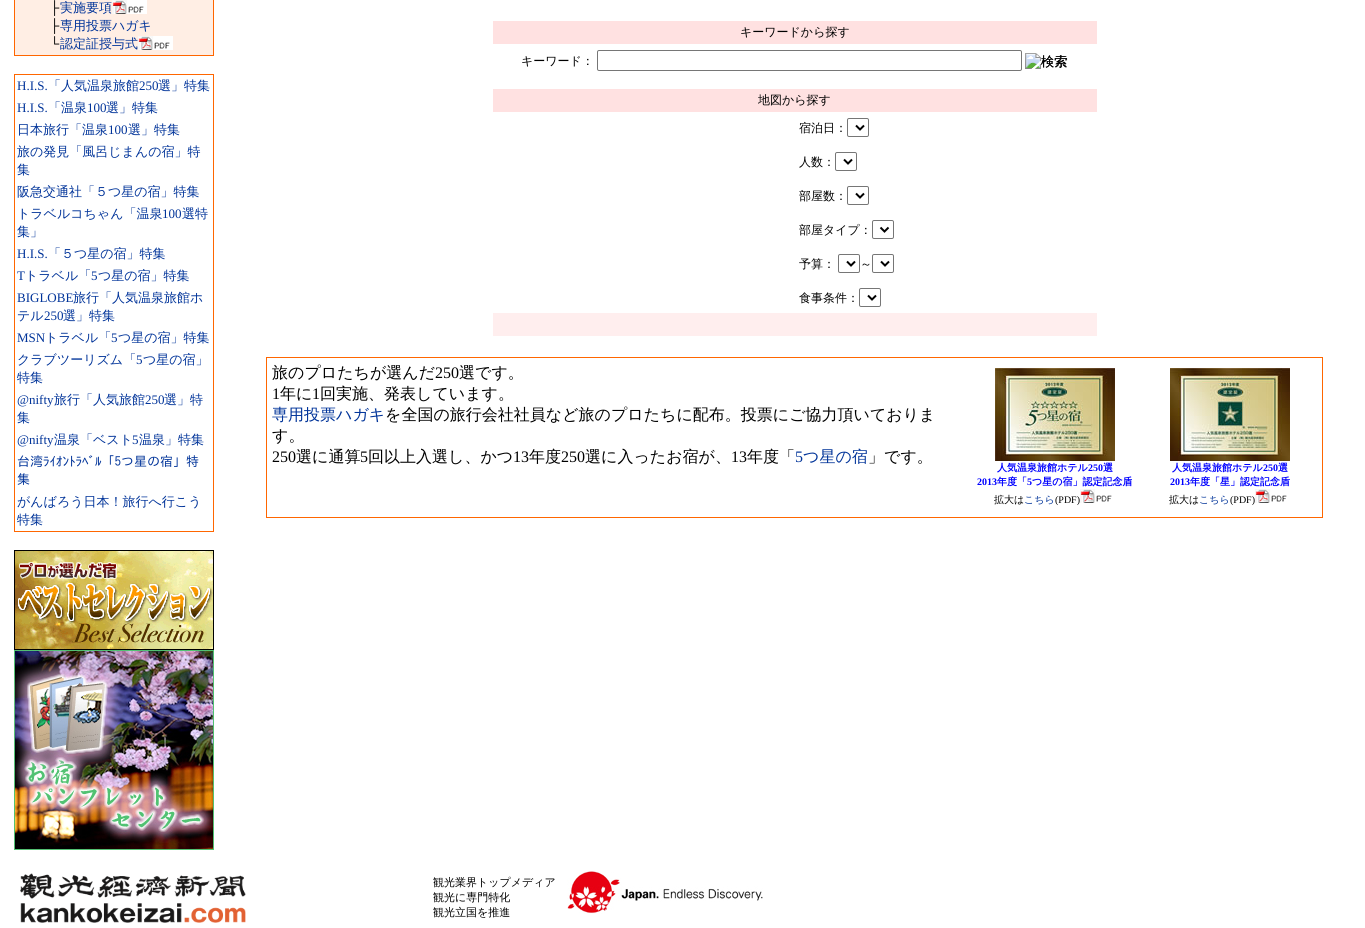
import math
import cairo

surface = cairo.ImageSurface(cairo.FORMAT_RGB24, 1365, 928)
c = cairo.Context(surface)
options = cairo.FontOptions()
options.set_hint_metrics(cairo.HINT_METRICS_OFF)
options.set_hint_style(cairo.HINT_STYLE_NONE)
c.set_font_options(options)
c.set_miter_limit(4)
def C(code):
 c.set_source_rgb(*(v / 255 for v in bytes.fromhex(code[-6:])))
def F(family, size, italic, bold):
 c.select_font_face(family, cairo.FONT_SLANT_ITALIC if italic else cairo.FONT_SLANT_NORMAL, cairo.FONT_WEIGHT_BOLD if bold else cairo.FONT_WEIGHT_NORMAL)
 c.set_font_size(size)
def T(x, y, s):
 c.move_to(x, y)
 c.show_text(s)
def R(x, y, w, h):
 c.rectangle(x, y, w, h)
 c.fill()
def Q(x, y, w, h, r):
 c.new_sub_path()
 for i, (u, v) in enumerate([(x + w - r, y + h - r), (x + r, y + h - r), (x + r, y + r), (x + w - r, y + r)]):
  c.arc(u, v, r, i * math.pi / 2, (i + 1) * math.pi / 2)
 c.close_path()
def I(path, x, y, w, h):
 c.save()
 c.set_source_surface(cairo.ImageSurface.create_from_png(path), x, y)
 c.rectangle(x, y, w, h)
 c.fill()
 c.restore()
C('ffffff')
c.paint()
C('ff6600')
R(14,0,1,56)
R(213,0,1,56)
C('ffeee4')
R(15,0,198,55)
F('Liberation Serif',13,0,0)
C('000000')
T(50,12,'├')
F('WenQuanYi Zen Hei Medium',13,0,0)
C('003399')
T(60,12,'実施要項')
I('1.png',112,0,35,14)
F('Liberation Serif',13,0,0)
C('000000')
T(50,30,'├')
F('WenQuanYi Zen Hei Medium',13,0,0)
C('003399')
T(60,30,'専用投票ハガキ')
F('Liberation Serif',13,0,0)
C('000000')
T(50,48,'└')
F('WenQuanYi Zen Hei Medium',13,0,0)
C('003399')
T(60,48,'認定証授与式')
I('1.png',138,36,35,14)
C('ff6600')
R(15,55,198,1)
R(14,74,1,458)
R(15,74,198,1)
R(213,74,1,458)
F('Liberation Serif',13,0,0)
C('003399')
T(17,90,'H.I.S.')
F('WenQuanYi Zen Hei Medium',13,0,0)
T(48,90,'「人気温泉旅館')
F('Liberation Serif',13,0,0)
T(139,90,'250')
F('WenQuanYi Zen Hei Medium',13,0,0)
T(158,90,'選」特集')
F('Liberation Serif',13,0,0)
T(17,112,'H.I.S.')
F('WenQuanYi Zen Hei Medium',13,0,0)
T(48,112,'「温泉')
F('Liberation Serif',13,0,0)
T(87,112,'100')
F('WenQuanYi Zen Hei Medium',13,0,0)
T(106,112,'選」特集')
T(17,134,'日本旅行「温泉')
F('Liberation Serif',13,0,0)
T(108,134,'100')
F('WenQuanYi Zen Hei Medium',13,0,0)
T(128,134,'選」特集')
T(17,156,'旅の発見「風呂じまんの宿」特')
T(17,174,'集')
T(17,196,'阪急交通社「５つ星の宿」特集')
T(17,218,'トラベルコちゃん「温泉')
F('Liberation Serif',13,0,0)
T(162,218,'100')
F('WenQuanYi Zen Hei Medium',13,0,0)
T(182,218,'選特')
T(17,236,'集」')
F('Liberation Serif',13,0,0)
T(17,258,'H.I.S.')
F('WenQuanYi Zen Hei Medium',13,0,0)
T(48,258,'「５つ星の宿」特集')
F('Liberation Serif',13,0,0)
T(17,280,'T')
F('WenQuanYi Zen Hei Medium',13,0,0)
T(25,280,'トラベル「')
F('Liberation Serif',13,0,0)
T(91,280,'5')
F('WenQuanYi Zen Hei Medium',13,0,0)
T(98,280,'つ星の宿」特集')
F('Liberation Serif',13,0,0)
T(17,302,'BIGLOBE')
F('WenQuanYi Zen Hei Medium',13,0,0)
T(73,302,'旅行「人気温泉旅館ホ')
T(17,320,'テル')
F('Liberation Serif',13,0,0)
T(44,320,'250')
F('WenQuanYi Zen Hei Medium',13,0,0)
T(63,320,'選」特集')
F('Liberation Serif',13,0,0)
T(17,342,'MSN')
F('WenQuanYi Zen Hei Medium',13,0,0)
T(45,342,'トラベル「')
F('Liberation Serif',13,0,0)
T(111,342,'5')
F('WenQuanYi Zen Hei Medium',13,0,0)
T(118,342,'つ星の宿」特集')
T(17,364,'クラブツーリズム「')
F('Liberation Serif',13,0,0)
T(136,364,'5')
F('WenQuanYi Zen Hei Medium',13,0,0)
T(143,364,'つ星の宿」')
T(17,382,'特集')
F('Liberation Serif',13,0,0)
T(17,404,'@nifty')
F('WenQuanYi Zen Hei Medium',13,0,0)
T(54,404,'旅行「人気旅館')
F('Liberation Serif',13,0,0)
T(145,404,'250')
F('WenQuanYi Zen Hei Medium',13,0,0)
T(164,404,'選」特')
T(17,422,'集')
F('Liberation Serif',13,0,0)
T(17,444,'@nifty')
F('WenQuanYi Zen Hei Medium',13,0,0)
T(54,444,'温泉「ベスト')
F('Liberation Serif',13,0,0)
T(132,444,'5')
F('WenQuanYi Zen Hei Medium',13,0,0)
T(139,444,'温泉」特集')
F('IPAGothic',13,0,0)
T(17,466,'台湾ﾗｲｵﾝﾄﾗﾍﾞﾙ「5つ星の宿」特')
T(17,484,'集')
F('WenQuanYi Zen Hei Medium',13,0,0)
T(17,506,'がんばろう日本！旅行へ行こう')
T(17,524,'特集')
C('ff6600')
R(15,531,198,1)
I('2.png',14,550,200,100)
I('3.png',14,650,200,200)
C('ffe1e1')
R(493,21,604,23)
F('WenQuanYi Zen Hei Medium',12,0,0)
C('000000')
T(740,36,'キーワードから探す')
T(521,65,'キーワード：')
Q(597.5,50.5,424,20,1.5)
C('767676')
c.set_line_width(1)
c.stroke()
I('4.png',1025,53,43,16)
F('WenQuanYi Zen Hei Medium',13,0,0)
C('000000')
T(1041,66,'検索')
C('ffe1e1')
R(493,89,604,23)
F('WenQuanYi Zen Hei Medium',12,0,0)
C('000000')
T(758,104,'地図から探す')
T(799,132,'宿泊日：')
Q(847.5,118.5,21,18,1.5)
C('767676')
c.stroke()
c.new_path()
c.move_to(856,125.5)
c.line_to(860,129.5)
c.line_to(864,125.5)
C('000000')
c.set_line_width(2)
c.stroke()
T(799,166,'人数：')
Q(835.5,152.5,21,18,1.5)
C('767676')
c.set_line_width(1)
c.stroke()
c.new_path()
c.move_to(844,159.5)
c.line_to(848,163.5)
c.line_to(852,159.5)
C('000000')
c.set_line_width(2)
c.stroke()
T(799,200,'部屋数：')
Q(847.5,186.5,21,18,1.5)
C('767676')
c.set_line_width(1)
c.stroke()
c.new_path()
c.move_to(856,193.5)
c.line_to(860,197.5)
c.line_to(864,193.5)
C('000000')
c.set_line_width(2)
c.stroke()
T(799,234,'部屋タイプ：')
Q(872.5,220.5,21,18,1.5)
C('767676')
c.set_line_width(1)
c.stroke()
c.new_path()
c.move_to(880.5,227.5)
c.line_to(884.5,231.5)
c.line_to(888.5,227.5)
C('000000')
c.set_line_width(2)
c.stroke()
T(799,268,'予算：')
Q(838.5,254.5,21,18,1.5)
C('767676')
c.set_line_width(1)
c.stroke()
c.new_path()
c.move_to(847,261.5)
c.line_to(851,265.5)
c.line_to(855,261.5)
C('000000')
c.set_line_width(2)
c.stroke()
T(860,268,'～')
Q(872.5,254.5,21,18,1.5)
C('767676')
c.set_line_width(1)
c.stroke()
c.new_path()
c.move_to(881,261.5)
c.line_to(885,265.5)
c.line_to(889,261.5)
C('000000')
c.set_line_width(2)
c.stroke()
T(799,302,'食事条件：')
Q(859.5,288.5,21,18,1.5)
C('767676')
c.set_line_width(1)
c.stroke()
c.new_path()
c.move_to(868,295.5)
c.line_to(872,299.5)
c.line_to(876,295.5)
C('000000')
c.set_line_width(2)
c.stroke()
C('ffeeee')
R(493,313,604,23)
C('ff6600')
R(266,357,1057,161)
C('ffffff')
R(267,358,1055,159)
F('WenQuanYi Zen Hei Medium',16,0,0)
C('000000')
T(272,378,'旅のプロたちが選んだ')
F('Liberation Serif',16,0,0)
T(435,378,'250')
F('WenQuanYi Zen Hei Medium',16,0,0)
T(459,378,'選です。')
F('Liberation Serif',16,0,0)
T(272,399,'1')
F('WenQuanYi Zen Hei Medium',16,0,0)
T(280,399,'年に')
F('Liberation Serif',16,0,0)
T(312,399,'1')
F('WenQuanYi Zen Hei Medium',16,0,0)
T(320,399,'回実施、発表しています。')
C('003399')
T(272,420,'専用投票ハガキ')
C('000000')
T(385,420,'を全国の旅行会社社員など旅のプロたちに配布。投票にご協力頂いておりま')
T(272,441,'す。')
F('Liberation Serif',16,0,0)
T(272,462,'250')
F('WenQuanYi Zen Hei Medium',16,0,0)
T(296,462,'選に通算')
F('Liberation Serif',16,0,0)
T(360,462,'5')
F('WenQuanYi Zen Hei Medium',16,0,0)
T(368,462,'回以上入選し、かつ')
F('Liberation Serif',16,0,0)
T(513,462,'13')
F('WenQuanYi Zen Hei Medium',16,0,0)
T(529,462,'年度')
F('Liberation Serif',16,0,0)
T(561,462,'250')
F('WenQuanYi Zen Hei Medium',16,0,0)
T(585,462,'選に入ったお宿が、')
F('Liberation Serif',16,0,0)
T(731,462,'13')
F('WenQuanYi Zen Hei Medium',16,0,0)
T(747,462,'年度「')
F('Liberation Serif',16,0,0)
C('003399')
T(795,462,'5')
F('WenQuanYi Zen Hei Medium',16,0,0)
T(803,462,'つ星の宿')
C('000000')
T(868,462,'」です。')
I('5.png',995,368,120,93)
F('WenQuanYi Zen Hei',10,0,1)
C('0000ff')
T(997,471,'人気温泉旅館ホテル')
F('Liberation Serif',10,0,1)
T(1088,471,'250')
F('WenQuanYi Zen Hei',10,0,1)
T(1103,471,'選')
F('Liberation Serif',10,0,1)
T(977,485,'2013')
F('WenQuanYi Zen Hei',10,0,1)
T(997,485,'年度「')
F('Liberation Serif',10,0,1)
T(1027,485,'5')
F('WenQuanYi Zen Hei',10,0,1)
T(1032,485,'つ星の宿」認定記念盾')
F('WenQuanYi Zen Hei Medium',10,0,0)
C('000000')
T(994,503,'拡大は')
C('003399')
T(1024,503,'こちら')
F('Liberation Serif',10,0,0)
C('000000')
T(1055,503,'(PDF)')
I('6.png',1080,489,32,14)
I('7.png',1170,368,120,93)
F('WenQuanYi Zen Hei',10,0,1)
C('0000ff')
T(1172,471,'人気温泉旅館ホテル')
F('Liberation Serif',10,0,1)
T(1263,471,'250')
F('WenQuanYi Zen Hei',10,0,1)
T(1278,471,'選')
F('Liberation Serif',10,0,1)
T(1170,485,'2013')
F('WenQuanYi Zen Hei',10,0,1)
T(1190,485,'年度「星」認定記念盾')
F('WenQuanYi Zen Hei Medium',10,0,0)
C('000000')
T(1169,503,'拡大は')
C('003399')
T(1199,503,'こちら')
F('Liberation Serif',10,0,0)
C('000000')
T(1230,503,'(PDF)')
I('6.png',1255,489,32,14)
I('8.png',20,873,226,50)
F('WenQuanYi Zen Hei Medium',11,0,0)
T(433,886,'観光業界トップメディア')
T(433,901,'観光に専門特化')
T(433,916,'観光立国を推進')
I('9.png',567,871,196,43)
surface.write_to_png('o.png')
